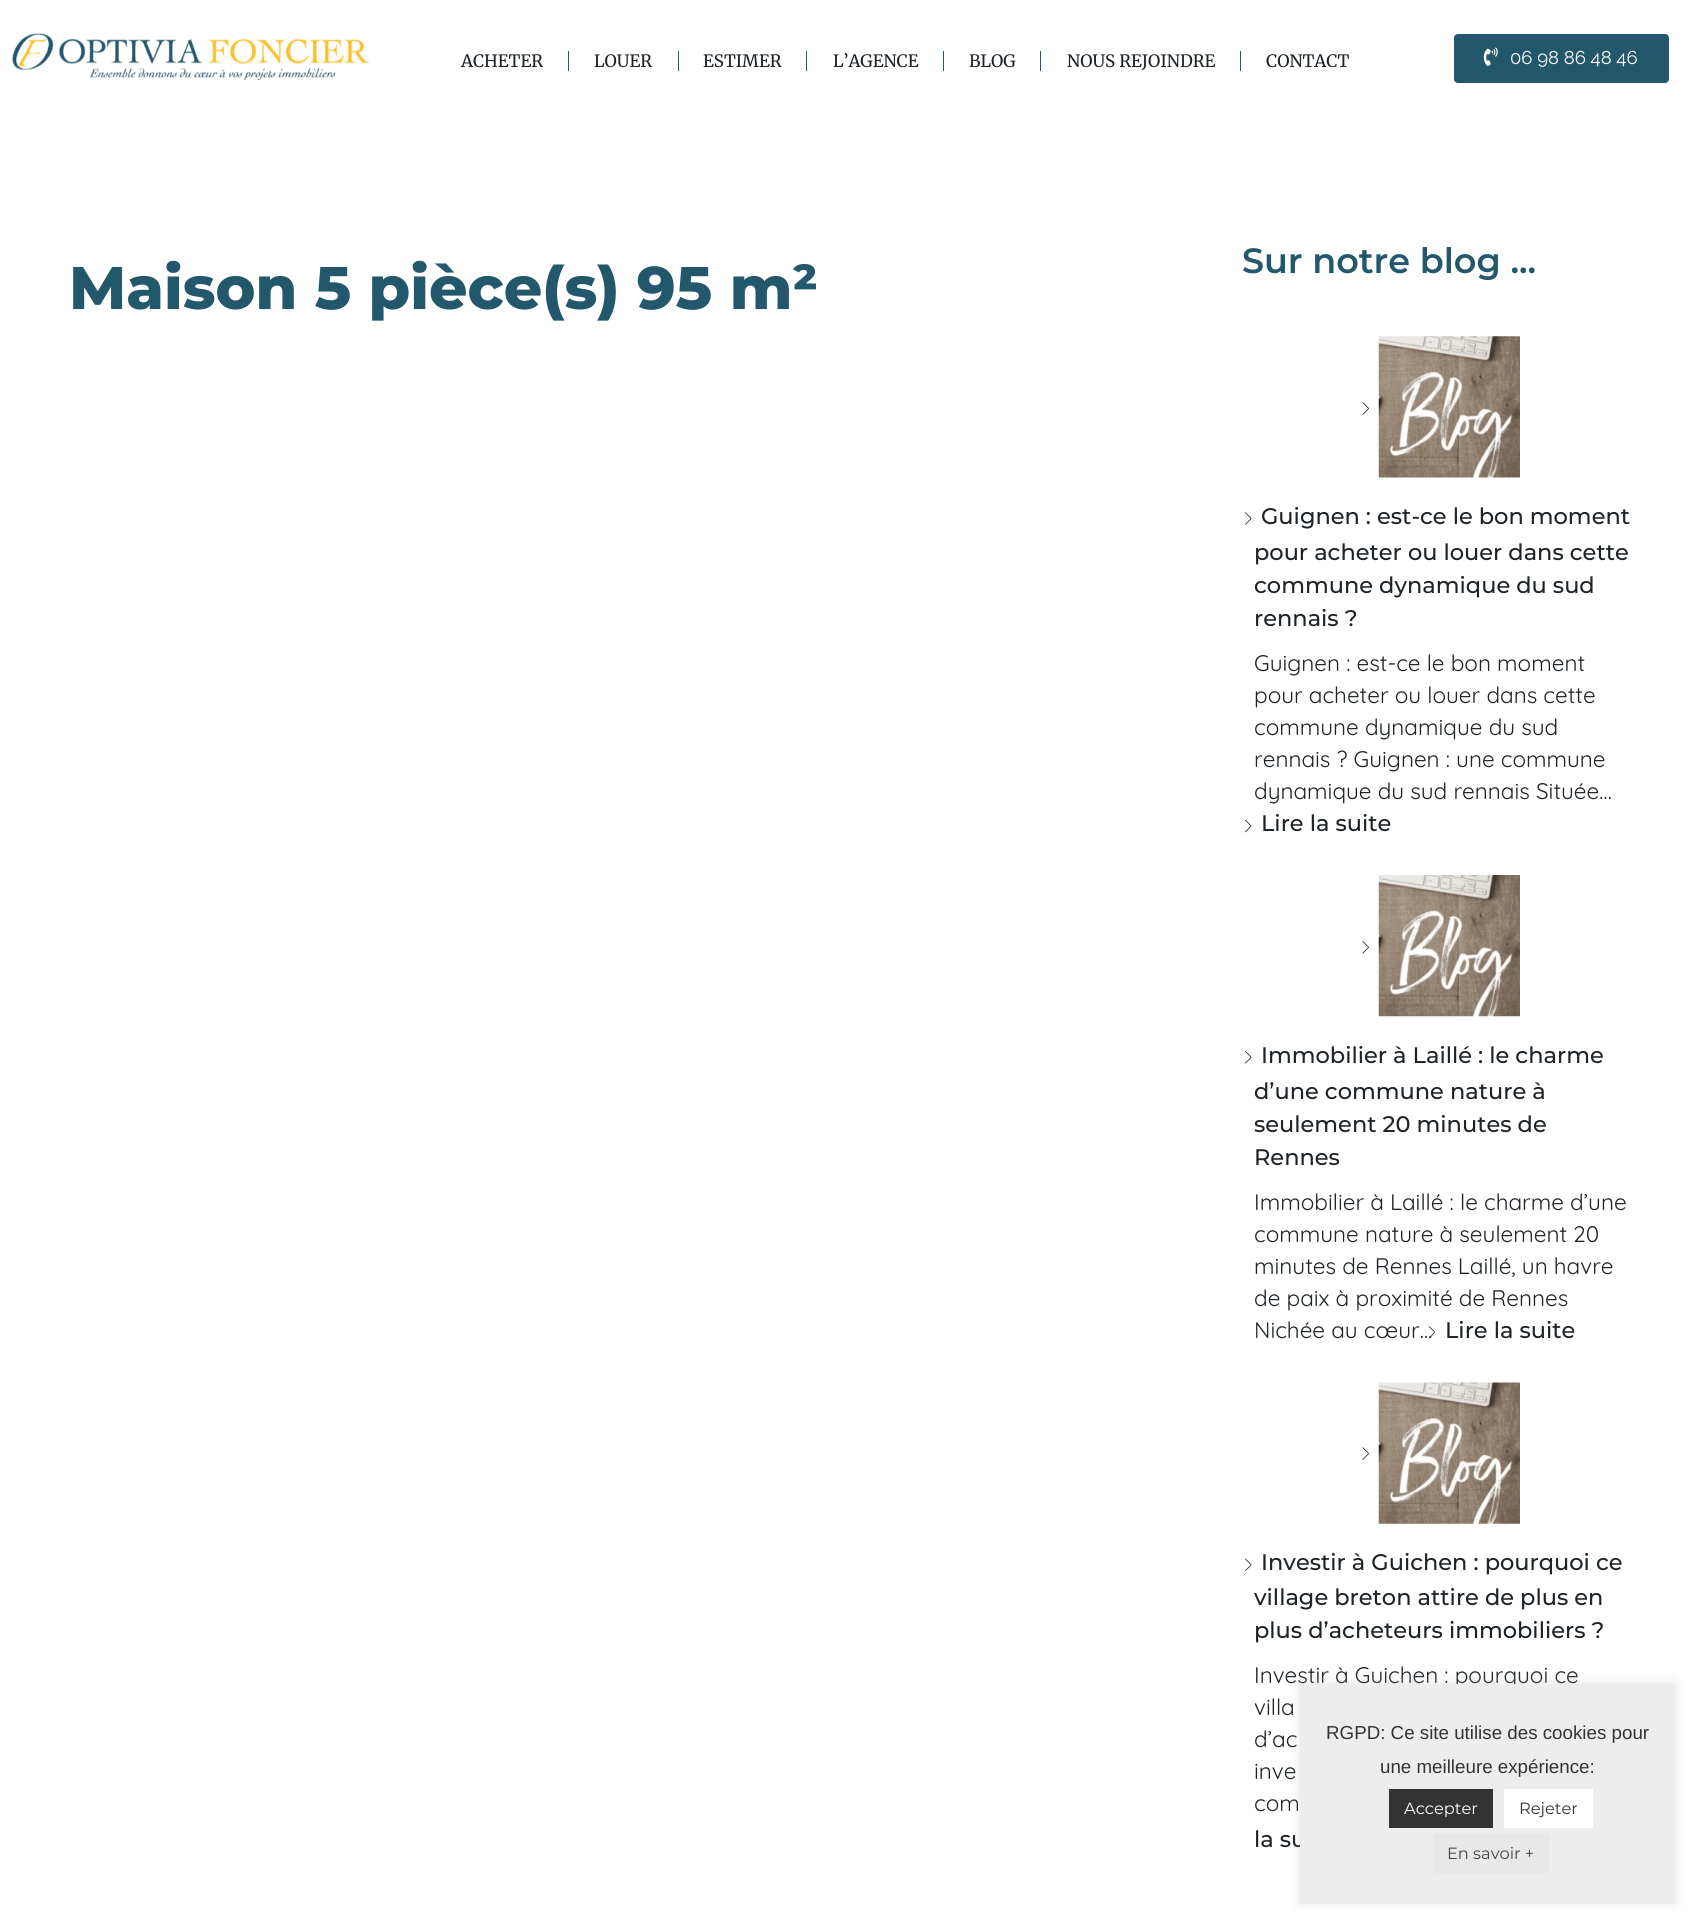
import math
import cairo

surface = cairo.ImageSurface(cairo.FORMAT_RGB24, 1693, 1922)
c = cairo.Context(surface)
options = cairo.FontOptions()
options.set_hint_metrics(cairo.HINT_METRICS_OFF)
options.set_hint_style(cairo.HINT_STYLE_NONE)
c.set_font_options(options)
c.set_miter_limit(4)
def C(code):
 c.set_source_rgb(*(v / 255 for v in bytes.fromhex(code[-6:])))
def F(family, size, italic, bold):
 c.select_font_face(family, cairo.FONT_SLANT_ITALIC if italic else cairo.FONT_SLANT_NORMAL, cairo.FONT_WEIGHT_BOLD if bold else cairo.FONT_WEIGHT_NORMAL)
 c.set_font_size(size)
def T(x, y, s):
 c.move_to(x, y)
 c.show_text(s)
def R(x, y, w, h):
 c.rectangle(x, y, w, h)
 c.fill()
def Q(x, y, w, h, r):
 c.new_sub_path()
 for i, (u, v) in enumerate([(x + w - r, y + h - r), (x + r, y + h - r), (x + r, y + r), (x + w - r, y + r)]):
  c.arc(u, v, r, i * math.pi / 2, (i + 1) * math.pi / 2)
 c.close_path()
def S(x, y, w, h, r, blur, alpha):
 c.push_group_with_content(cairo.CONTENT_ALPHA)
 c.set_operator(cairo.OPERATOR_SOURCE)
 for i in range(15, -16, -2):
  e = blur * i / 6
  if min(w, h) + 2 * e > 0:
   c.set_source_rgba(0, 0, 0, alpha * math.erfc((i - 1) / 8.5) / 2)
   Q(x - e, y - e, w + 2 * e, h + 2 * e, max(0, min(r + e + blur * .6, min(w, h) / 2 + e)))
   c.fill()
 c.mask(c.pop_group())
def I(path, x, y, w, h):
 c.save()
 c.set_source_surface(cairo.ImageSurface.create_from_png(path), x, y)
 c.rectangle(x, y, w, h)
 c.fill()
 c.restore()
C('ffffff')
c.paint()
I('1.png',12,33,357,47)
F('Merriweather',17,0,0)
C('1d2327')
T(461,67,'ACHETER')
C('23576c')
R(568,51,1,20)
C('1d2327')
T(594,67,'LOUER')
C('23576c')
R(678,51,1,20)
C('1d2327')
T(703,67,'ESTIMER')
C('23576c')
R(806,51,1,20)
C('1d2327')
T(833,67,'L’AGENCE')
C('23576c')
R(943,51,1,20)
C('1d2327')
T(969,67,'BLOG')
C('23576c')
R(1040,51,1,20)
C('1d2327')
T(1067,67,'NOUS REJOINDRE')
C('23576c')
R(1240,51,1,20)
C('1d2327')
T(1266,67,'CONTACT')
C('23576c')
Q(1454,34,215,49,4)
c.fill()
I('2.png',1483,47,15,19)
F('Raleway',18.5,0,0)
C('ffffff')
T(1510,64,'06 98 86 48 46')
F('Montserrat ExtraBold',60,0,0)
C('23576c')
T(69,309,'Maison 5 pièce(s) 95 m²')
F('Montserrat SemiBold',35,0,0)
T(1242,273,'Sur notre blog ...')
I('3.png',1362,402,7,13)
I('4.png',1378,336,142,142)
I('5.png',1245,512,7,13)
F('Montserrat Medium',22.5,0,0)
C('1d2327')
T(1261,524,'Guignen : est-ce le bon moment')
T(1254,560,'pour acheter ou louer dans cette')
T(1254,593,'commune dynamique du sud')
T(1254,626,'rennais ?')
F('Quicksand',22.5,0,0)
T(1254,671,'Guignen : est-ce le bon moment')
T(1254,703,'pour acheter ou louer dans cette')
T(1254,735,'commune dynamique du sud')
T(1254,767,'rennais ? Guignen : une commune')
T(1254,799,'dynamique du sud rennais Située…')
I('6.png',1245,819,7,14)
F('Montserrat Medium',22.5,0,0)
T(1261,831,'Lire la suite')
I('7.png',1362,941,7,13)
I('8.png',1378,875,142,142)
I('9.png',1245,1051,7,13)
T(1261,1063,'Immobilier à Laillé : le charme')
T(1254,1099,'d’une commune nature à')
T(1254,1132,'seulement 20 minutes de')
T(1254,1165,'Rennes')
F('Quicksand',22.5,0,0)
T(1254,1210,'Immobilier à Laillé : le charme d’une')
T(1254,1242,'commune nature à seulement 20')
T(1254,1274,'minutes de Rennes Laillé, un havre')
T(1254,1306,'de paix à proximité de Rennes')
T(1254,1338,'Nichée au cœur…')
F('Montserrat Medium',22.5,0,0)
T(1445,1338,'Lire la suite')
I('10.png',1428,1326,8,13)
I('3.png',1362,1447,7,13)
I('11.png',1378,1382,142,142)
I('12.png',1245,1558,7,13)
T(1261,1570,'Investir à Guichen : pourquoi ce')
T(1254,1605,'village breton attire de plus en')
T(1254,1638,'plus d’acheteurs immobiliers ?')
F('Quicksand',22.5,0,0)
T(1254,1683,'Investir à Guichen : pourquoi ce')
T(1254,1715,'villa')
T(1254,1747,'d’ac')
T(1254,1779,'inve')
T(1254,1811,'com')
F('Montserrat Medium',22.5,0,0)
T(1254,1847,'la su')
C('acabab')
S(1300,1683,375,220,0,6,.3)
C('ededed')
R(1300,1684,375,220)
F('Liberation Sans',18.75,0,0)
C('333333')
T(1326,1739,'RGPD: Ce site utilise des cookies pour')
T(1380,1773,'une meilleure expérience:')
R(1389,1789,104,39)
F('Montserrat',16.25,0,0)
C('ffffff')
T(1404,1814,'Accepter')
R(1504,1789,89,39)
C('333333')
T(1519,1814,'Rejeter')
C('e8e8e8')
R(1433,1834,116,39)
C('444444')
T(1447,1859,'En savoir +')
surface.write_to_png('o.png')
